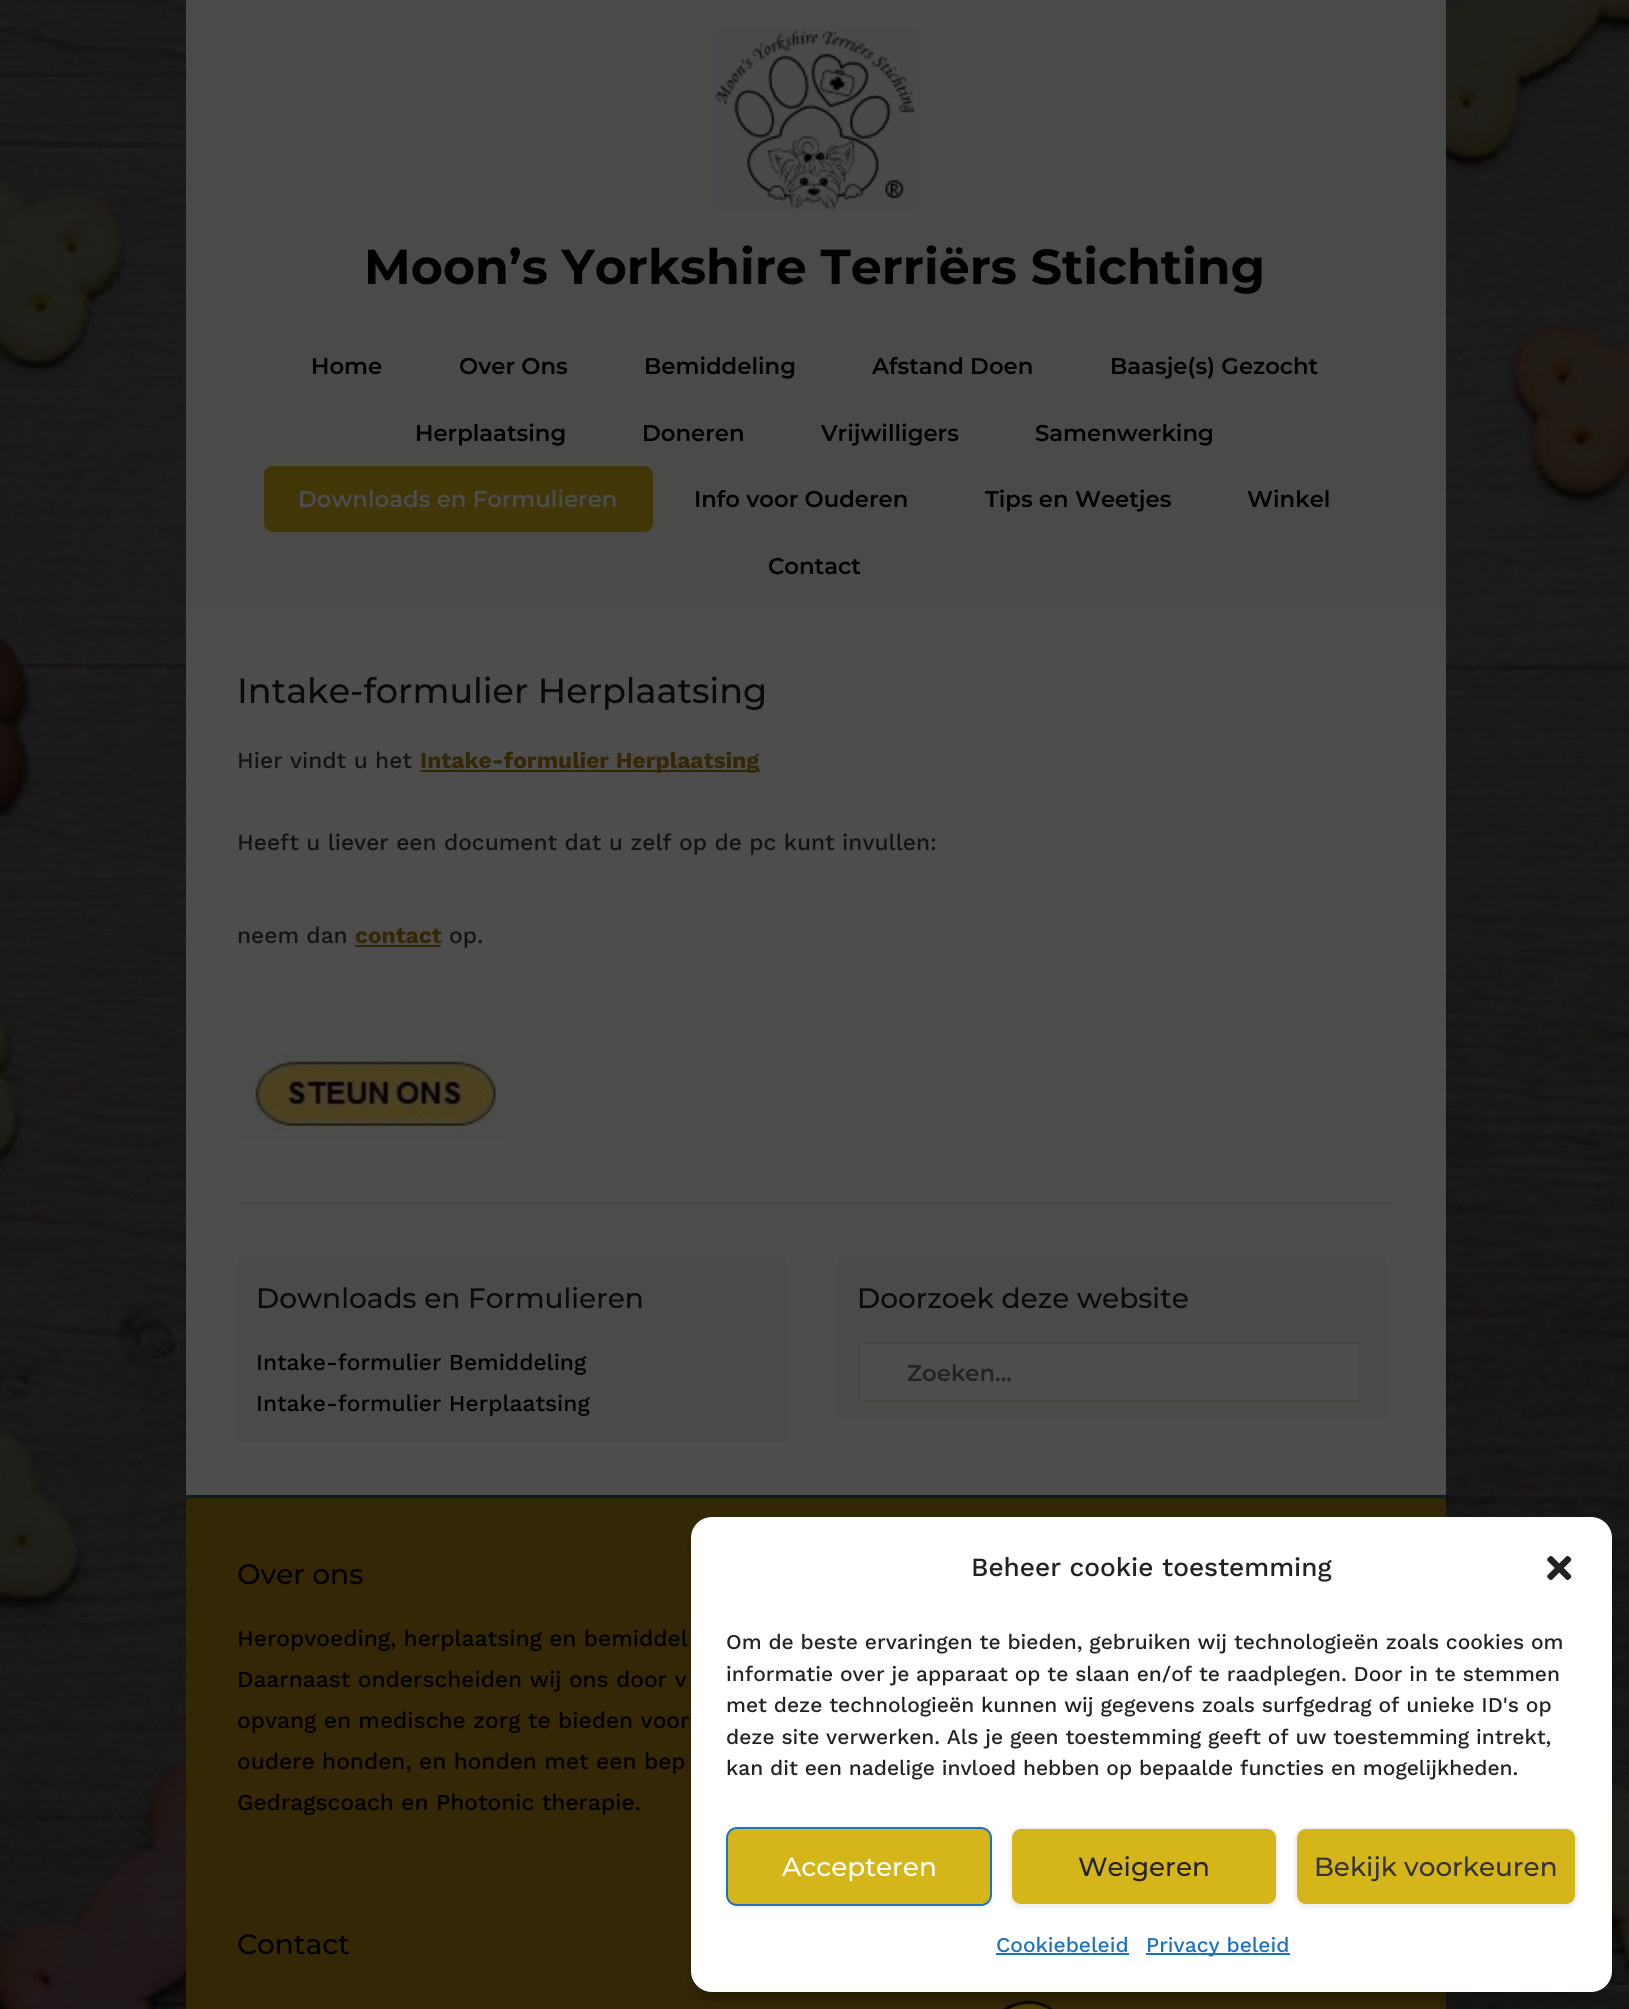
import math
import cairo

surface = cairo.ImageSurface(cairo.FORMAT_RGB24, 1629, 2009)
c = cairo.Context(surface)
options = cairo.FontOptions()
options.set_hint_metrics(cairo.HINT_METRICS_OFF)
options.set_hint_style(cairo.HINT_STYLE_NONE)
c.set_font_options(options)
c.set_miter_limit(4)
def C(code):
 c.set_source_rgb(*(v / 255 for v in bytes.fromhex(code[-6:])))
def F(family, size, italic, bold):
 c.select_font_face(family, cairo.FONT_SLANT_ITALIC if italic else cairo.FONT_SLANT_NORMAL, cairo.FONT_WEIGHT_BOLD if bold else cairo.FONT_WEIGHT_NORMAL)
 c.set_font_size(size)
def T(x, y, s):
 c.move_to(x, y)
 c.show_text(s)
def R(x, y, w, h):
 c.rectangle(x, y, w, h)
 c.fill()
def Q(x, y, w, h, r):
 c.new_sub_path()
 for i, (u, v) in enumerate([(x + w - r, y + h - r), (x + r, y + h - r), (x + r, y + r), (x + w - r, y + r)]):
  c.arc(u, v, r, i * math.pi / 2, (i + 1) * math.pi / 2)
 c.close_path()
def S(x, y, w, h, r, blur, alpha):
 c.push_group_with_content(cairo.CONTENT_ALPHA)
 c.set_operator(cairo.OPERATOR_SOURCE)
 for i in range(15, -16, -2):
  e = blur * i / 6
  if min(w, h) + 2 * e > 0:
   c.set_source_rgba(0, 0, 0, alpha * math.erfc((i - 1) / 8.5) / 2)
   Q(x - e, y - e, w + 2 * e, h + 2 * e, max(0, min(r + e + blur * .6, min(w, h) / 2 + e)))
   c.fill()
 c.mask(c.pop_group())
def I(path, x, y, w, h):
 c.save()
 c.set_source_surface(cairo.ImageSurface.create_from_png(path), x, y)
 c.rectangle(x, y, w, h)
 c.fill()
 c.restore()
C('ffffff')
c.paint()
I('1.png',0,0,1629,2009)
C('4d4d4d')
R(186,607,1260,888)
C('4a4a49')
R(186,0,1260,607)
I('2.png',715,29,201,181)
F('Montserrat',49,0,1)
C('000000')
T(364,284,'Moon’s Yorkshire Terriërs Stichting')
F('Montserrat SemiBold',22.75,0,0)
T(311,374,'Home')
T(459,374,'Over Ons')
T(644,374,'Bemiddeling')
T(872,374,'Afstand Doen')
T(1110,374,'Baasje(s) Gezocht')
T(415,441,'Herplaatsing')
T(642,441,'Doneren')
T(821,441,'Vrijwilligers')
T(1035,441,'Samenwerking')
C('403608')
Q(264,466,389,66,9)
c.fill()
C('4d4d4d')
T(298,507,'Downloads en Formulieren')
C('000000')
T(694,507,'Info voor Ouderen')
T(985,507,'Tips en Weetjes')
T(1247,507,'Winkel')
T(768,574,'Contact')
C('474747')
R(238,1202,1155,2)
F('Montserrat Medium',35,0,0)
C('0a0a0a')
T(237,703,'Intake-formulier Herplaatsing')
F('Work Sans Medium',22.75,0,0)
C('131313')
T(237,768,'Hier vindt u het')
C('342705')
R(420,770,340,2)
F('Work Sans',22.75,0,1)
T(420,768,'Intake-formulier Herplaatsing')
F('Work Sans Medium',22.75,0,0)
C('131313')
T(237,850,'Heeft u liever een document dat u zelf op de pc kunt invullen:')
T(237,943,'neem dan')
F('Work Sans',22.75,0,1)
C('342705')
T(355,943,'contact')
R(355,945,86,2)
F('Work Sans Medium',22.75,0,0)
C('131313')
T(449,943,'op.')
I('3.png',238,1050,271,88)
C('4a4a49')
R(238,1257,548,185)
F('Montserrat Medium',28,0,0)
C('0a0a0a')
T(256,1308,'Downloads en Formulieren')
F('Work Sans Medium',22.75,0,0)
C('000000')
T(256,1370,'Intake-formulier Bemiddeling')
T(256,1411,'Intake-formulier Herplaatsing')
C('4a4a49')
R(838,1257,548,162)
F('Montserrat Medium',28,0,0)
C('0a0a0a')
T(857,1308,'Doorzoek deze website')
C('4d4d4d')
c.rectangle(859,1343,500,58)
c.fill_preserve()
C('474747')
c.stroke()
F('Montserrat SemiBold',22.75,0,0)
C('232323')
T(907,1381,'Zoeken...')
C('081d26')
R(186,1495,1260,3)
C('342705')
R(186,1498,1260,511)
F('Montserrat Medium',28,0,0)
C('000000')
T(237,1584,'Over ons')
F('Work Sans Medium',22.75,0,0)
T(237,1646,'Heropvoeding, herplaatsing en bemiddel')
T(237,1687,'Daarnaast onderscheiden wij ons door v')
T(237,1728,'opvang en medische zorg te bieden voor')
T(237,1769,'oudere honden, en honden met een bep')
T(237,1810,'Gedragscoach en Photonic therapie.')
F('Montserrat Medium',28,0,0)
T(237,1954,'Contact')
I('4.png',1002,2000,52,9)
C('000000')
S(691,1528,921,474,21,5,.23)
c.save()
c.set_fill_rule(cairo.FILL_RULE_EVEN_ODD)
c.new_path()
c.move_to(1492,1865)
c.line_to(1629,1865)
c.line_to(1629,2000)
c.line_to(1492,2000)
c.close_path()
c.move_to(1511,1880)
c.line_to(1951,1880)
c.curve_to(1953,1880,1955,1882,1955,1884)
c.line_to(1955,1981)
c.curve_to(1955,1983,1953,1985,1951,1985)
c.line_to(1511,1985)
c.curve_to(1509,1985,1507,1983,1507,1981)
c.line_to(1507,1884)
c.curve_to(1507,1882,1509,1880,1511,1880)
c.close_path()
c.clip()
C('262626')
S(1507,1880,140,105,4,4.5,1)
c.restore()
C('ffffff')
Q(691,1517,921,475,21)
c.fill()
F('Work Sans Medium',26.25,0,0)
C('232323')
T(971,1576,'Beheer cookie toestemming')
I('5.png',1547,1556,25,24)
F('Work Sans Medium',21,0,0)
T(726,1649,'Om de beste ervaringen te bieden, gebruiken wij technologieën zoals cookies om')
T(726,1681,'informatie over je apparaat op te slaan en/of te raadplegen. Door in te stemmen')
T(726,1712,'met deze technologieën kunnen wij gegevens zoals surfgedrag of unieke ID\'s op')
T(726,1744,'deze site verwerken. Als je geen toestemming geeft of uw toestemming intrekt,')
T(726,1775,'kan dit een nadelige invloed hebben op bepaalde functies en mogelijkheden.')
C('404040')
S(726,1829,266,79,11,2,.1)
C('d5b61a')
Q(727,1828,264,77,10)
c.fill_preserve()
C('1e73be')
c.stroke()
F('Montserrat Medium',26.25,0,0)
C('ffffff')
T(782,1876,'Accepteren')
C('404040')
S(1010,1829,268,79,11,2,.1)
C('d5b61a')
Q(1011,1828,266,77,10)
c.fill_preserve()
C('f2f2f2')
c.stroke()
C('232323')
T(1078,1876,'Weigeren')
C('404040')
S(1295,1829,282,79,11,2,.1)
C('d5b61a')
Q(1296,1828,280,77,10)
c.fill_preserve()
C('f2f2f2')
c.stroke()
C('333333')
T(1314,1876,'Bekijk voorkeuren')
F('Work Sans Medium',21,0,0)
C('1e73be')
T(996,1952,'Cookiebeleid')
R(996,1953,133,2)
R(1146,1953,144,2)
T(1146,1952,'Privacy beleid')
surface.write_to_png('o.png')
